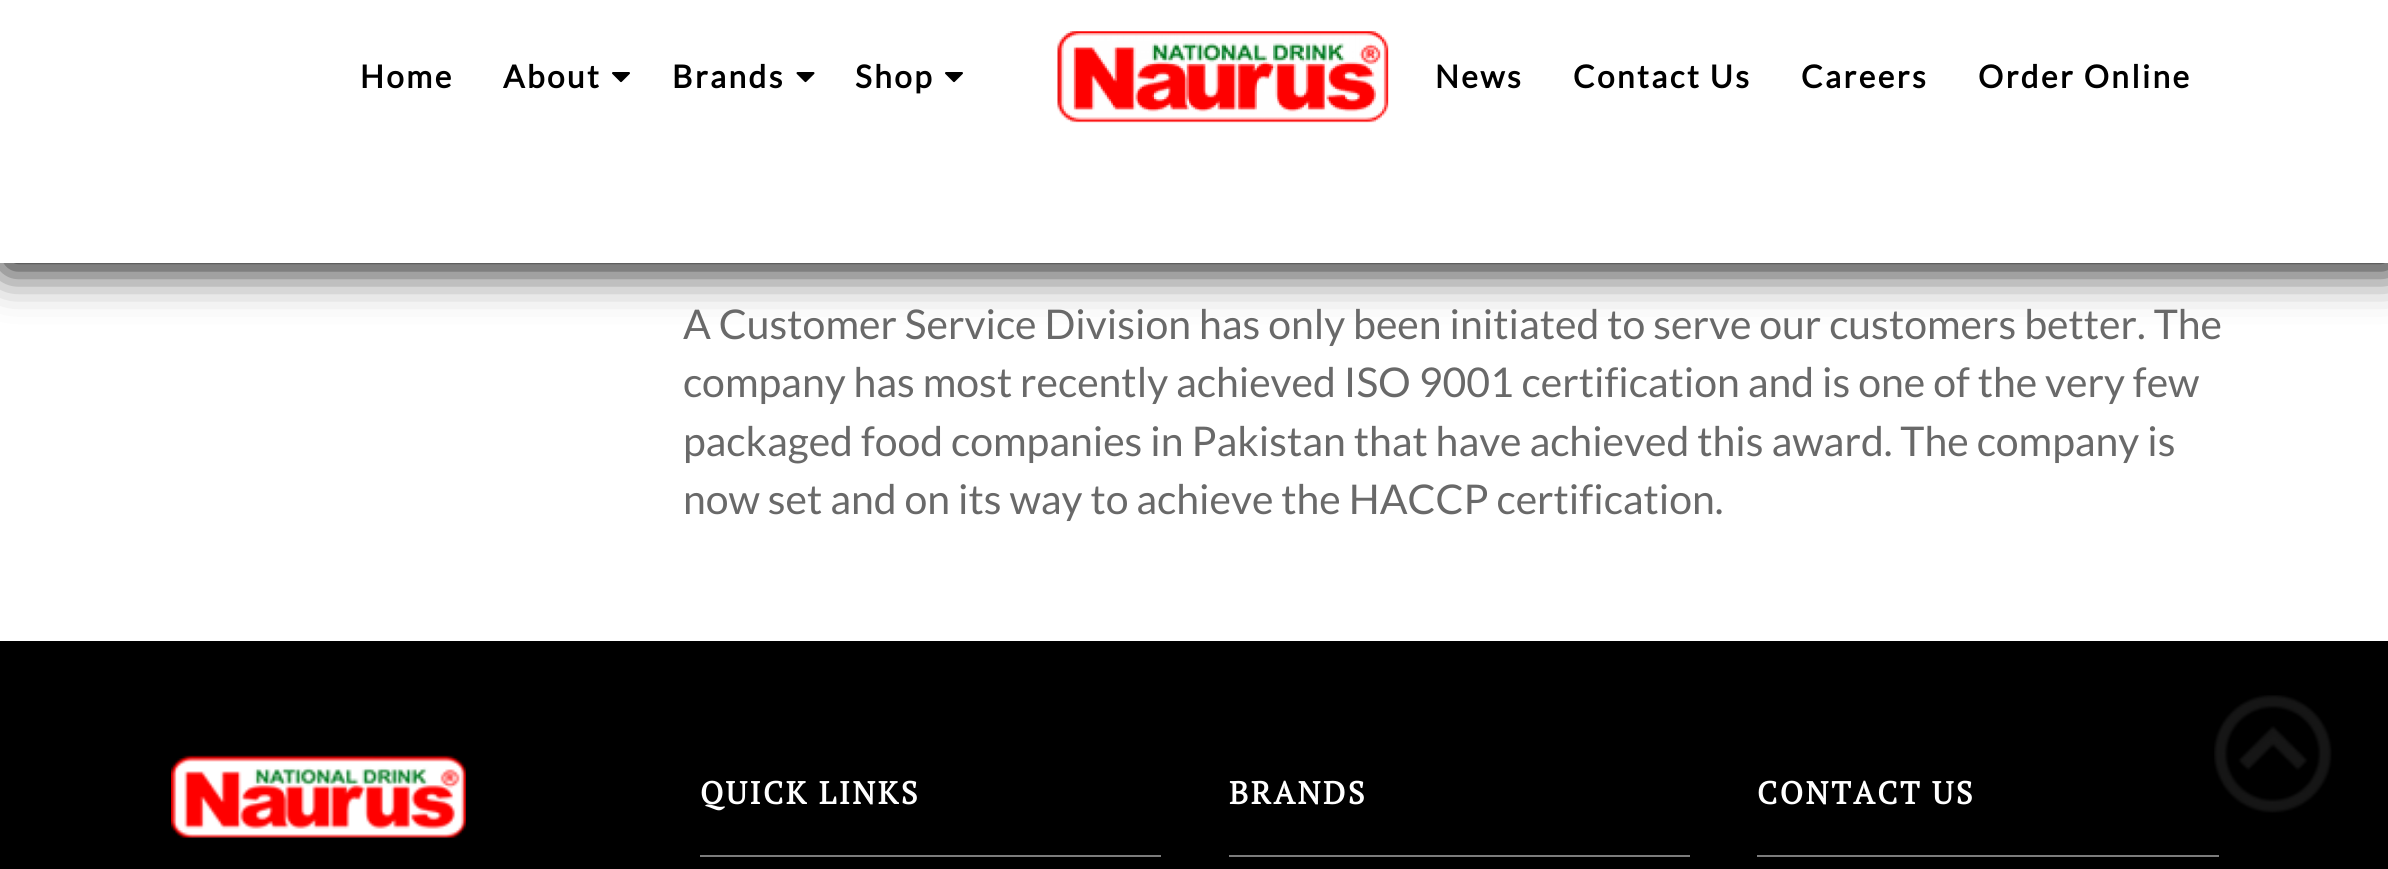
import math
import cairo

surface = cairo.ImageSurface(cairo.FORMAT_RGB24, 2388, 869)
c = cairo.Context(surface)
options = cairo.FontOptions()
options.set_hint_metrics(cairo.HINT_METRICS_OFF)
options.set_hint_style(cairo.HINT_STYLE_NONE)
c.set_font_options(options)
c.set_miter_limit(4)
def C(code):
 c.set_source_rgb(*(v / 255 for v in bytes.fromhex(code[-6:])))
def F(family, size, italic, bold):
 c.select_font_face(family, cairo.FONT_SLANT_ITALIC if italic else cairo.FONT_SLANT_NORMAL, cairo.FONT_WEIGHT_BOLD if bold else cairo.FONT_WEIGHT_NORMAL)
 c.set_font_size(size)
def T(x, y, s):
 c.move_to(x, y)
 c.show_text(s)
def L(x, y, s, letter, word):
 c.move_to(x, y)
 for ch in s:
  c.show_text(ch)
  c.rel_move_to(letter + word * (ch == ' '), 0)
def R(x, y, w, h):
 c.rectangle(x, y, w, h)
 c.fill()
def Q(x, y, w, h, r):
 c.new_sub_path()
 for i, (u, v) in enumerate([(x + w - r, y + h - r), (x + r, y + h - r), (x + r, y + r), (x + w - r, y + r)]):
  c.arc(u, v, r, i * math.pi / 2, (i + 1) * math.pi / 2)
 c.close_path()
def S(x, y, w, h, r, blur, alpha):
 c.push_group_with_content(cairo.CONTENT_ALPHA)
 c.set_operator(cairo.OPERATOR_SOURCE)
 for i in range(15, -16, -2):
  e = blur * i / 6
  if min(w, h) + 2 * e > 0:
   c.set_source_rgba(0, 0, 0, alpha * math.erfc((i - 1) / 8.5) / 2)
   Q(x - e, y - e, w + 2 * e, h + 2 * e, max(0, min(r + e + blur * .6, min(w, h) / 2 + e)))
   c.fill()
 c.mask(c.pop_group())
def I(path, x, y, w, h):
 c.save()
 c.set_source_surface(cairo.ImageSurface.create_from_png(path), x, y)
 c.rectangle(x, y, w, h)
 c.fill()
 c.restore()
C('ffffff')
c.paint()
C('000000')
S(5,5,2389,263,0,22.5,1)
C('ffffff')
R(0,0,2388,263)
F('Lato',31.5,0,1)
C('000000')
L(360,88,'Home',2.5,0)
L(503,88,'About',2.5,0)
I('1.png',612,72,18,11)
L(672,88,'Brands',2.5,0)
I('2.png',796,72,19,11)
L(855,88,'Shop',2.5,0)
I('1.png',945,72,18,11)
I('3.png',1057,31,332,92)
L(1435,88,'News',2.5,0)
L(1573,88,'Contact Us',2.5,0)
L(1801,88,'Careers',2.5,0)
L(1978,88,'Order Online',2.5,0)
F('Lato',40.95,0,0)
C('696969')
T(683,339,'A Customer Service Division has only been initiated to serve our customers better. The')
T(683,397,'company has most recently achieved ISO 9001 certification and is one of the very few')
T(683,456,'packaged food companies in Pakistan that have achieved this award. The company is')
T(683,514,'now set and on its way to achieve the HACCP certification.')
C('000000')
R(0,641,2388,228)
I('4.png',171,755,295,83)
F('PT Serif',31.5,0,1)
C('ffffff')
L(700,804,'QUICK LINKS',2.5,0)
C('7c7c7c')
R(700,855,461,2)
C('ffffff')
L(1229,804,'BRANDS',2.5,0)
C('7c7c7c')
R(1229,855,461,2)
C('ffffff')
L(1757,804,'CONTACT US',2.5,0)
C('7c7c7c')
R(1757,855,462,2)
I('5.png',2214,695,118,118)
surface.write_to_png('o.png')
